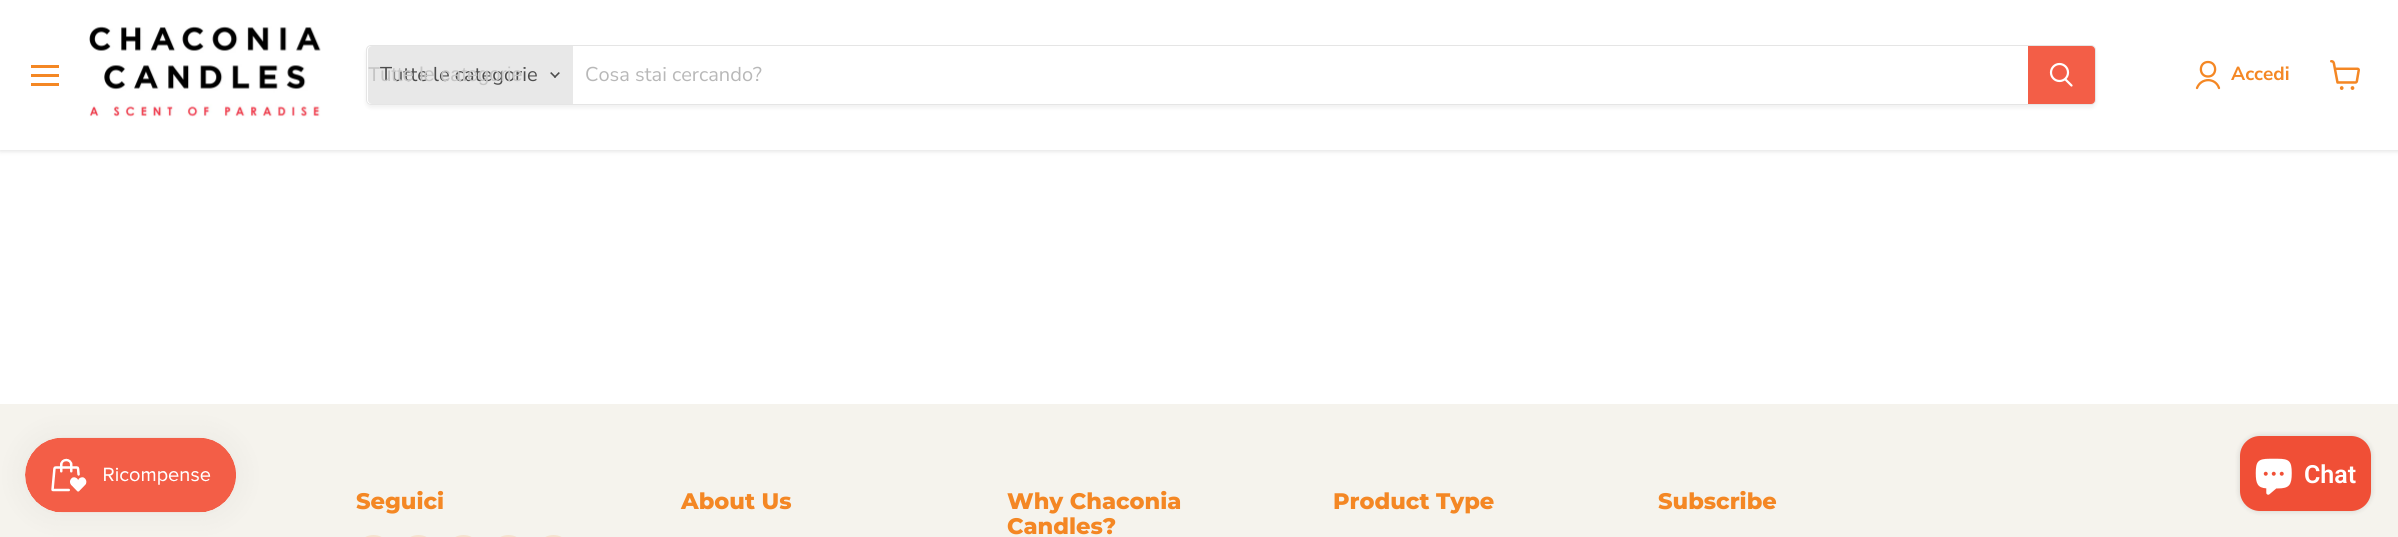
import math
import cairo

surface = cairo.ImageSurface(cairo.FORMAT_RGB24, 2398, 537)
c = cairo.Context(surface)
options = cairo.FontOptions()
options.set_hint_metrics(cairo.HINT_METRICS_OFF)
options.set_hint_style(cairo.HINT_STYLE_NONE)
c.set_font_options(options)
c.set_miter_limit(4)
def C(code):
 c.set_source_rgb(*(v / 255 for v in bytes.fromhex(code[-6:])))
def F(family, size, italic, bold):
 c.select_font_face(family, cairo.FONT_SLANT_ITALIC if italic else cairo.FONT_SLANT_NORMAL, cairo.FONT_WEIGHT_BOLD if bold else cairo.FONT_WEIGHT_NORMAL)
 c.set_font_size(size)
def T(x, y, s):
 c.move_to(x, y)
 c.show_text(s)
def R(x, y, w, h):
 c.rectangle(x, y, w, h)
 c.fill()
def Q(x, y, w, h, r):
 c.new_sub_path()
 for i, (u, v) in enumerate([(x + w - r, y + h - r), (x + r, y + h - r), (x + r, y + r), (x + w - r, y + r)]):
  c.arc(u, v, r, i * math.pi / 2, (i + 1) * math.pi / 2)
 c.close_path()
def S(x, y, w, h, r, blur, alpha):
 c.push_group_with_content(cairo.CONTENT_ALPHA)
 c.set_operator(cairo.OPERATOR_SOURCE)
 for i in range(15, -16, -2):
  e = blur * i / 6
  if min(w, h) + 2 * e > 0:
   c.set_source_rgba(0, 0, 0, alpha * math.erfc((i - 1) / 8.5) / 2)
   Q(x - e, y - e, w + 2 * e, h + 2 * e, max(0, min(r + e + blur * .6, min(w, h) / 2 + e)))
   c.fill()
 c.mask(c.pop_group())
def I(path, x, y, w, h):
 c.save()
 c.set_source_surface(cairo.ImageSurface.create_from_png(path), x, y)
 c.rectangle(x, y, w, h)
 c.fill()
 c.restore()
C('ffffff')
c.paint()
C('808080')
S(0,1,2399,150,0,2.5,.25)
C('ffffff')
R(0,0,2398,150)
C('f48724')
R(31,65,28,3)
R(31,74,28,3)
R(31,83,28,3)
I('1.png',89,26,232,91)
c.save()
c.set_fill_rule(cairo.FILL_RULE_EVEN_ODD)
c.new_path()
c.move_to(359,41)
c.line_to(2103,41)
c.line_to(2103,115)
c.line_to(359,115)
c.close_path()
c.move_to(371,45)
c.line_to(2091,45)
c.curve_to(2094,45,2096,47,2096,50)
c.line_to(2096,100)
c.curve_to(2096,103,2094,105,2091,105)
c.line_to(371,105)
c.curve_to(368,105,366,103,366,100)
c.line_to(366,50)
c.curve_to(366,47,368,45,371,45)
c.close_path()
c.clip()
C('808080')
S(366,48,1730,60,5,2,.11)
c.restore()
Q(366.5,45.5,1729,59,4.5)
c.set_source_rgba(0.502,0.502,0.502,0.2)
c.set_line_width(1)
c.stroke()
C('e8e8e8')
c.new_path()
c.move_to(372,46)
c.line_to(573,46)
c.line_to(573,104)
c.line_to(372,104)
c.curve_to(370,104,368,102,368,100)
c.line_to(368,50)
c.curve_to(368,48,370,46,372,46)
c.close_path()
c.fill()
F('Nunito Sans',20,0,0)
C('4d4d4d')
T(380,81,'Tutte le categorie')
F('Liberation Sans',20,0,0)
C('c5c5c5')
T(368,81,'Tutte le categorie')
I('2.png',550,72,10,6)
F('Nunito Sans',20,0,0)
C('b8b8b8')
T(585,81,'Cosa stai cercando?')
C('f35e47')
c.new_path()
c.move_to(2028.5,46.5)
c.line_to(2091,46.5)
c.curve_to(2093,46.5,2094.5,48,2094.5,50)
c.line_to(2094.5,100)
c.curve_to(2094.5,102,2093,103.5,2091,103.5)
c.line_to(2028.5,103.5)
c.close_path()
c.fill_preserve()
c.stroke()
c.new_path()
c.move_to(2071.5,85.5)
c.line_to(2065.5,79.5)
C('ffffff')
c.set_line_width(2.2)
c.set_line_cap(cairo.LINE_CAP_ROUND)
c.stroke()
c.arc(2059.5,72.5,8.5,0,2 * math.pi)
c.set_line_cap(cairo.LINE_CAP_BUTT)
c.stroke()
c.new_path()
c.move_to(2208,76.5)
c.curve_to(2217.5,76.5,2217.5,62,2208,62)
c.curve_to(2198.5,62,2198.5,76.5,2208,76.5)
c.close_path()
c.move_to(2219,88)
c.curve_to(2215.5,77.5,2201,77.5,2197,88)
C('f48724')
c.set_line_width(2.3)
c.set_line_cap(cairo.LINE_CAP_ROUND)
c.set_line_join(cairo.LINE_JOIN_ROUND)
c.stroke()
F('Nunito Sans',19,0,1)
T(2231,80,'Accedi')
I('3.png',2330,60,30,30)
C('f5f3ed')
R(0,404,2398,133)
C('000000')
S(25,438,211,75,37.5,15.5,.05)
I('4.png',25,437,211,76)
S(2240,436,131,75,20,3,.15)
C('f04f36')
Q(2240,436,131,75,20)
c.fill()
I('5.png',2255,458,37,37)
F('Roboto SemiBold',25,0,0)
C('ffffff')
T(2304,483,'Chat')
F('Montserrat ExtraBold',22.5,0,0)
C('f48724')
T(356,509,'Seguici')
C('f5e3cf')
Q(356,535,35,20,17.5)
c.fill()
Q(401,535,35,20,17.5)
c.fill()
Q(446,535,35,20,17.5)
c.fill()
Q(491,535,35,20,17.5)
c.fill()
Q(536,535,35,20,17.5)
c.fill()
C('f48724')
T(681,509,'About Us')
T(1007,509,'Why Chaconia')
T(1007,534,'Candles?')
T(1333,509,'Product Type')
T(1658,509,'Subscribe')
surface.write_to_png('o.png')
